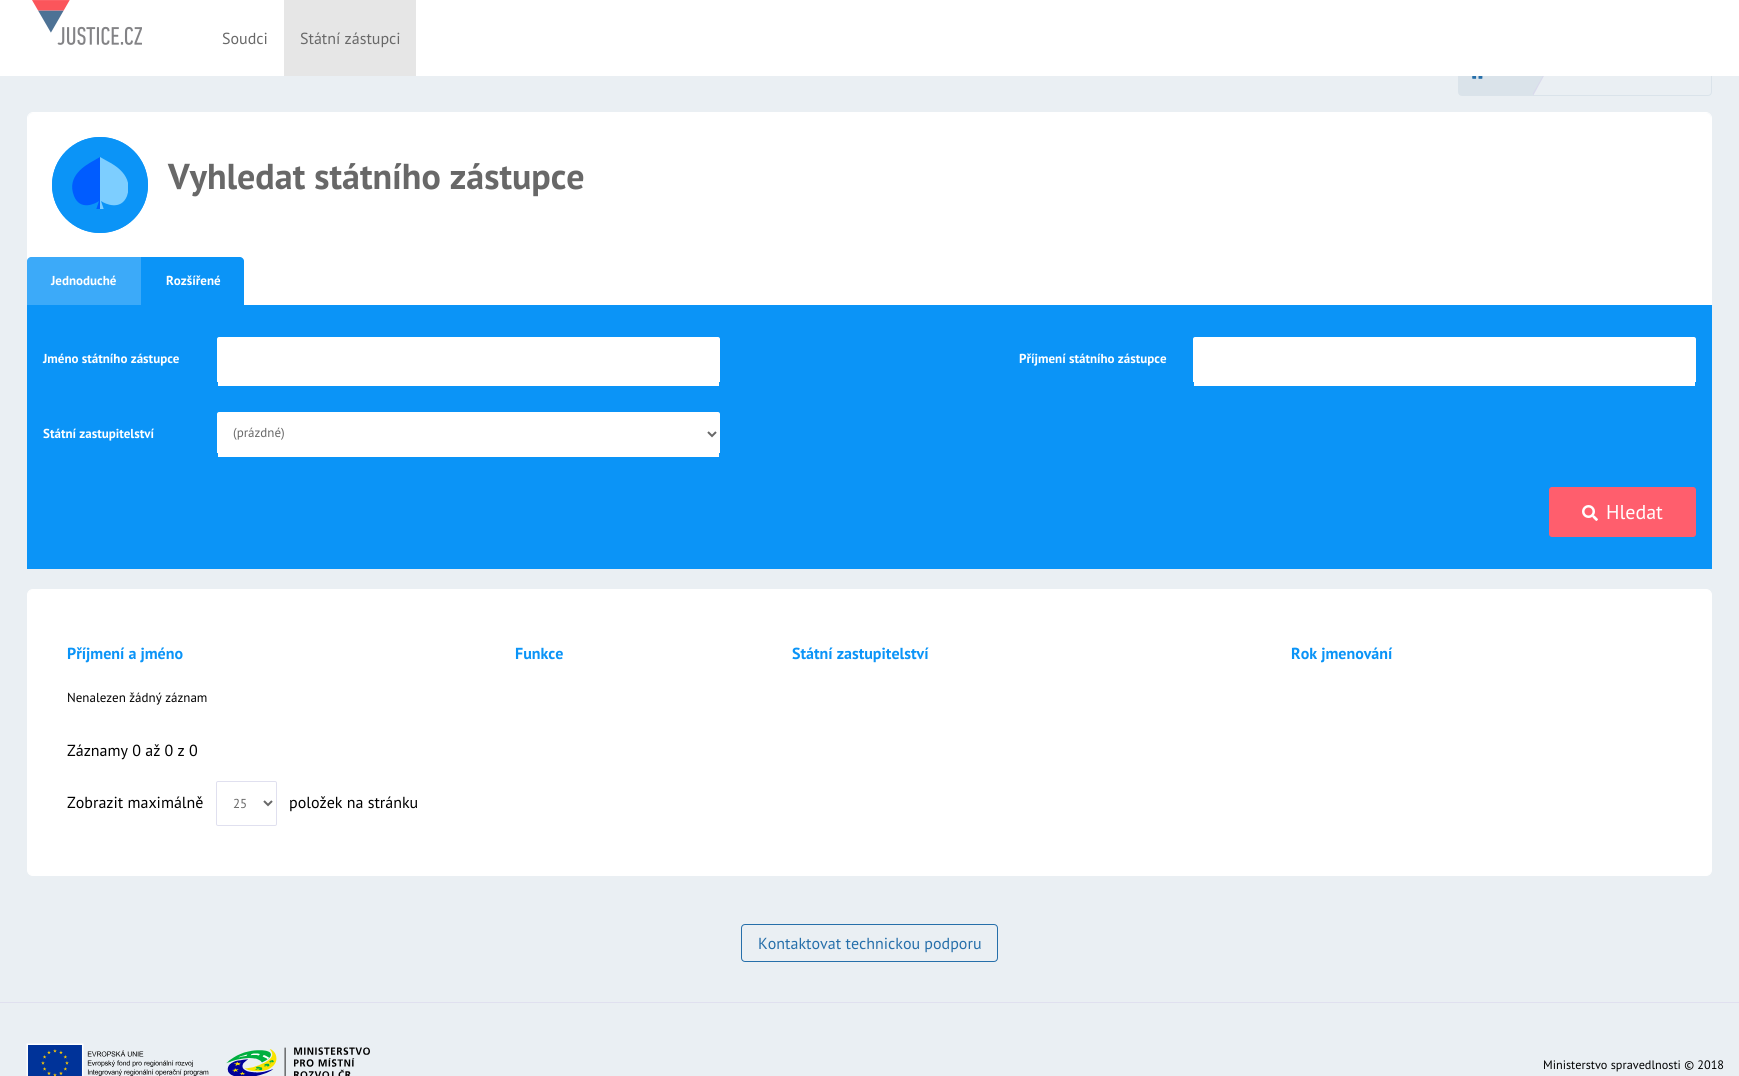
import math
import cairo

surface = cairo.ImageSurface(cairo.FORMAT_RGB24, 1739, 1076)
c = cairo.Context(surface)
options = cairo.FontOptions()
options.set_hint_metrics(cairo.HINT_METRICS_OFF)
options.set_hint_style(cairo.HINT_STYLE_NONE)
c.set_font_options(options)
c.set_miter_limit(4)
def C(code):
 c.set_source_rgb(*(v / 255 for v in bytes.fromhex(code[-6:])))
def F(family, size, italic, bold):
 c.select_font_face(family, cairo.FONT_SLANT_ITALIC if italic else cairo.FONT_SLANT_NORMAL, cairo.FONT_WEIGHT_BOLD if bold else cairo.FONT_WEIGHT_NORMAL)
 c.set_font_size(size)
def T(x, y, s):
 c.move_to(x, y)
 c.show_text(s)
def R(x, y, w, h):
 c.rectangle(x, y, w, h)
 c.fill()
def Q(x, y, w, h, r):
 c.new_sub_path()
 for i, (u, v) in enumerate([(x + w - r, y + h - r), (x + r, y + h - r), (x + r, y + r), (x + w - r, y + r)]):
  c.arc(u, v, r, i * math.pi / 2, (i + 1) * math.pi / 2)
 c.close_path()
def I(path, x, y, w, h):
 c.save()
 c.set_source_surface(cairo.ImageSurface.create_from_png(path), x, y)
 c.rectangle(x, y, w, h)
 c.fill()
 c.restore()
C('eaeff3')
c.paint()
Q(1458.5,51.5,253,44,3.5)
C('dae3ea')
c.set_line_width(1)
c.stroke()
R(1459,76,74,19)
C('d9d9ec')
c.new_path()
c.move_to(1533,96)
c.line_to(1533,53)
c.line_to(1545,74)
c.close_path()
c.fill()
C('dae3ea')
c.new_path()
c.move_to(1532,95)
c.line_to(1532,53)
c.line_to(1544,74)
c.close_path()
c.fill()
C('ffffff')
R(0,0,1739,76)
I('1.png',32,0,110,45)
F('PT Sans',16,0,0)
C('686868')
T(222,44,'Soudci')
C('e6e6e6')
R(284,0,132,76)
C('686868')
T(300,44,'Státní zástupci')
I('2.png',1472,76,11,3)
C('ffffff')
c.new_path()
c.move_to(33,113)
c.line_to(1706,113)
c.curve_to(1709,113,1711,115,1711,118)
c.line_to(1711,257)
c.line_to(28,257)
c.line_to(28,118)
c.curve_to(28,115,30,113,33,113)
c.close_path()
c.fill()
c.set_fill_rule(cairo.FILL_RULE_EVEN_ODD)
c.new_path()
c.move_to(33,112)
c.line_to(1706,112)
c.curve_to(1709,112,1712,115,1712,118)
c.line_to(1712,257)
c.line_to(27,257)
c.line_to(27,118)
c.curve_to(27,115,30,112,33,112)
c.close_path()
c.move_to(33,113)
c.line_to(1706,113)
c.curve_to(1709,113,1711,115,1711,118)
c.line_to(1711,257)
c.line_to(28,257)
c.line_to(28,118)
c.curve_to(28,115,30,113,33,113)
c.close_path()
c.fill()
C('0b94f7')
c.arc(100,185,48,0,2 * math.pi)
c.fill()
c.save()
c.set_fill_rule(cairo.FILL_RULE_WINDING)
c.rectangle(72,157,56,52)
c.clip()
C('005cff')
c.new_path()
c.move_to(93,161)
c.curve_to(86,165,66,176,74,196)
c.curve_to(80,211,95,204,99,201)
c.line_to(96,210)
c.line_to(100,210)
c.line_to(100,157)
c.close_path()
c.fill()
C('7dceff')
c.new_path()
c.move_to(107,161)
c.line_to(100,157)
c.line_to(100,210)
c.line_to(104,210)
c.line_to(101,201)
c.curve_to(105,204,121,211,127,196)
c.curve_to(134,176,115,165,107,161)
c.close_path()
c.fill()
c.restore()
c.arc(100,185,47.5,0,2 * math.pi)
c.stroke()
F('PT Sans',36,0,1)
C('686868')
T(168,189,'Vyhledat státního zástupce')
C('ffffff')
R(27,257,1685,48)
C('3caaf9')
c.new_path()
c.move_to(31,257)
c.line_to(141,257)
c.line_to(141,305)
c.line_to(27,305)
c.line_to(27,261)
c.curve_to(27,259,29,257,31,257)
c.close_path()
c.fill()
F('PT Sans',13,0,1)
C('ffffff')
T(51,285,'Jednoduché')
C('0b94f7')
c.new_path()
c.move_to(141,257)
c.line_to(240,257)
c.curve_to(242,257,244,259,244,261)
c.line_to(244,305)
c.line_to(141,305)
c.close_path()
c.fill()
C('ffffff')
T(166,285,'Rozšířené')
C('0b94f7')
R(27,305,1685,264)
C('ffffff')
T(43,363,'Jméno státního zástupce')
c.set_fill_rule(cairo.FILL_RULE_WINDING)
c.new_path()
c.move_to(219,337)
c.line_to(718,337)
c.curve_to(719,337,720,338,720,339)
c.line_to(720,382)
c.line_to(217,382)
c.line_to(217,339)
c.curve_to(217,338,218,337,219,337)
c.close_path()
c.fill()
R(218,382,501,4)
T(1019,363,'Příjmení státního zástupce')
c.new_path()
c.move_to(1195,337)
c.line_to(1694,337)
c.curve_to(1695,337,1696,338,1696,339)
c.line_to(1696,382)
c.line_to(1193,382)
c.line_to(1193,339)
c.curve_to(1193,338,1194,337,1195,337)
c.close_path()
c.fill()
R(1194,382,501,4)
T(43,438,'Státní zastupitelství')
c.new_path()
c.move_to(219,412)
c.line_to(718,412)
c.curve_to(719,412,720,413,720,414)
c.line_to(720,453)
c.line_to(217,453)
c.line_to(217,414)
c.curve_to(217,413,218,412,219,412)
c.close_path()
c.fill()
R(218,453,501,4)
c.new_path()
c.move_to(708,432)
c.line_to(712,436)
c.line_to(716,432)
C('686868')
c.set_line_width(2)
c.stroke()
F('PT Sans',13,0,0)
T(233,437,'(prázdné)')
C('ff5e6d')
Q(1549.5,487.5,146,49,2.5)
c.fill_preserve()
c.set_line_width(1)
c.stroke()
I('3.png',1582,505,16,16)
F('PT Sans',20,0,0)
C('ffffff')
T(1606,519,'Hledat')
Q(27.5,589.5,1684,286,5.5)
c.fill_preserve()
c.stroke()
F('PT Sans',16,0,1)
C('0b94f7')
T(67,659,'Příjmení a jméno')
T(515,659,'Funkce')
T(792,659,'Státní zastupitelství')
T(1291,659,'Rok jmenování')
F('PT Sans',13,0,0)
C('000000')
T(67,702,'Nenalezen žádný záznam')
F('PT Sans',16,0,0)
T(67,756,'Záznamy 0 až 0 z 0')
T(67,808,'Zobrazit maximálně')
Q(216.5,781.5,60,44,1.5)
C('e0e0ef')
c.stroke()
c.new_path()
c.move_to(264,801)
c.line_to(268,805)
c.line_to(272,801)
C('686868')
c.set_line_width(2)
c.stroke()
F('PT Sans',13,0,0)
T(233,808,'25')
F('PT Sans',16,0,0)
C('000000')
T(289,808,'položek na stránku')
Q(741.5,924.5,256,37,3.5)
C('266faa')
c.set_line_width(1)
c.stroke()
T(758,949,'Kontaktovat technickou podporu')
C('e0e0ef')
R(0,1002,1739,1)
I('4.png',26,1043,344,33)
F('PT Sans',12.25,0,0)
C('000000')
T(1543,1069,'Ministerstvo spravedlnosti © 2018')
surface.write_to_png('o.png')
